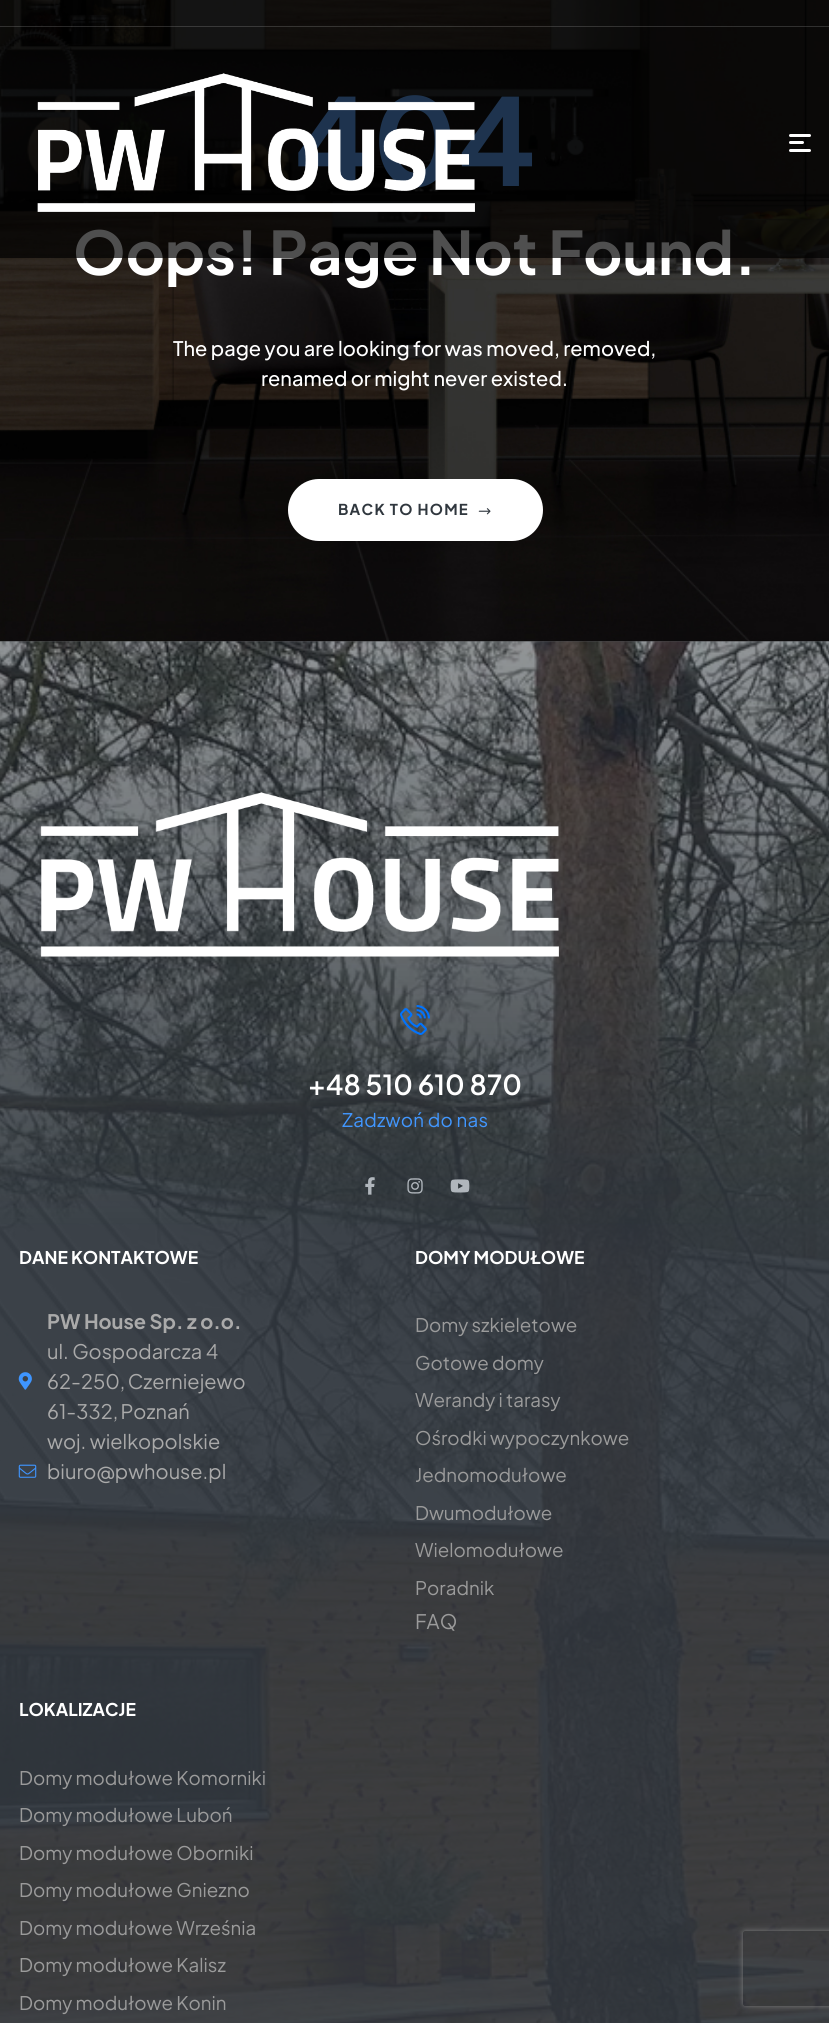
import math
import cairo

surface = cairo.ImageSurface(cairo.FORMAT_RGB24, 829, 2023)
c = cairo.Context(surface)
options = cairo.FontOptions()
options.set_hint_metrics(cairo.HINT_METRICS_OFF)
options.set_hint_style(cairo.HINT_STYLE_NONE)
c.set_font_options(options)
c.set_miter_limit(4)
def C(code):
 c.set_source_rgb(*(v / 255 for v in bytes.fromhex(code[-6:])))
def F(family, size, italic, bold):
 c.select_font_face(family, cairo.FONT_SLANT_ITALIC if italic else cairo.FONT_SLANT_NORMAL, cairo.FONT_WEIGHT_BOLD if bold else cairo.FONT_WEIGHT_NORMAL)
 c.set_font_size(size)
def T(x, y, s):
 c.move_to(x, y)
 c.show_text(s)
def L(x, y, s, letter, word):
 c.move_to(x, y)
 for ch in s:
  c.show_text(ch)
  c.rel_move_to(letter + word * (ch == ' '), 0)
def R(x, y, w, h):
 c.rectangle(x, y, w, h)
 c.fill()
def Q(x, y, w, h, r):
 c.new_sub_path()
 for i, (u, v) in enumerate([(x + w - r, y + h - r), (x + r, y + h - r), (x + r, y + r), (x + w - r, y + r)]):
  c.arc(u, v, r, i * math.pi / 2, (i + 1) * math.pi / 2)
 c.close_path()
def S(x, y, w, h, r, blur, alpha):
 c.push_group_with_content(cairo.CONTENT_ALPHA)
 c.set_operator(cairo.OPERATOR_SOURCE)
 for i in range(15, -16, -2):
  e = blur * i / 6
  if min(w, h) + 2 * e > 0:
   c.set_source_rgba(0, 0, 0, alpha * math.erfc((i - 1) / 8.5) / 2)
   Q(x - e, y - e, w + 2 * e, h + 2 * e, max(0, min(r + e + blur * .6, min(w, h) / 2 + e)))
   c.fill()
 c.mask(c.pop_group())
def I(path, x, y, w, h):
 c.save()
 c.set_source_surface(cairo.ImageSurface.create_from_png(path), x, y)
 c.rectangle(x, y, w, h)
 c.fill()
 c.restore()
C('ffffff')
c.paint()
I('4.png',0,641,829,1382)
gradient = cairo.LinearGradient(415,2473,415,641)
gradient.add_color_stop_rgba(.68,0.188,0.216,0.243,.93)
gradient.add_color_stop_rgba(1,0.188,0.216,0.243,.53)
c.set_source(gradient)
R(0,641,829,1382)
I('2.png',0,0,829,642)
c.set_source_rgba(0,0,0,0.69)
R(0,0,829,28)
c.set_source_rgba(1,1,1,0.16)
R(0,26,829,1)
F('Plus Jakarta Sans',120,0,1)
C('60a6fb')
T(294,186,'404')
F('Plus Jakarta Sans',60,0,1)
C('ffffff')
T(73,275,'Oops! Page Not Found.')
c.set_source_rgba(0,0,0,0.69)
R(0,28,829,230)
I('1.png',37,73,438,139)
C('ffffff')
Q(789,134,22,3,1.5)
c.fill()
Q(789,141,15,3,1.5)
c.fill()
Q(789,149,22,3,1.5)
c.fill()
F('Plus Jakarta Sans Medium',20,0,0)
T(173,356,'The page you are looking for was moved, removed,')
T(261,386,'renamed or might never existed.')
Q(288,479,255,62,31)
c.fill()
F('Plus Jakarta Sans',15,0,1)
C('30373e')
L(338,515,'BACK TO HOME',1.25,0)
I('3.png',478,508,13,7)
I('5.png',40,792,519,165)
I('6.png',400,1005,30,30)
F('Plus Jakarta Sans SemiBold',27.5,0,0)
C('ffffff')
T(308,1095,'+48 510 610 870')
F('Plus Jakarta Sans',18.75,0,0)
C('4197ff')
L(342,1127,'Zadzwoń do nas',.25,0)
I('7.png',365,1177,10,18)
I('8.png',407,1178,16,16)
I('9.png',450,1179,20,14)
F('Plus Jakarta Sans',17.5,0,1)
C('ffffff')
T(19,1264,'DANE KONTAKTOWE')
I('10.png',18,1372,14,18)
F('Plus Jakarta Sans',20,0,1)
C('aaaaaa')
T(47,1329,'PW House Sp. z o.o.')
F('Plus Jakarta Sans',20,0,0)
T(47,1359,'ul. Gospodarcza 4')
L(47,1389,'62-250, Czerniejewo',0,-1)
L(47,1419,'61-332, Poznań',0,-1)
T(47,1449,'woj. wielkopolskie')
I('11.png',18,1464,19,14)
T(47,1479,'biuro@pwhouse.pl')
F('Plus Jakarta Sans',17.5,0,1)
C('ffffff')
T(415,1264,'DOMY MODUŁOWE')
F('Plus Jakarta Sans',18.75,0,0)
C('9b9b9b')
T(415,1332,'Domy szkieletowe')
T(415,1370,'Gotowe domy')
T(415,1407,'Werandy i tarasy')
T(415,1445,'Ośrodki wypoczynkowe')
T(415,1482,'Jednomodułowe')
T(415,1520,'Dwumodułowe')
T(415,1557,'Wielomodułowe')
T(415,1595,'Poradnik')
F('Plus Jakarta Sans',20,0,0)
T(415,1629,'FAQ')
F('Plus Jakarta Sans',17.5,0,1)
C('ffffff')
T(19,1716,'LOKALIZACJE')
F('Plus Jakarta Sans',18.75,0,0)
C('9b9b9b')
T(19,1785,'Domy modułowe Komorniki')
T(19,1822,'Domy modułowe Luboń')
T(19,1860,'Domy modułowe Oborniki')
T(19,1897,'Domy modułowe Gniezno')
T(19,1935,'Domy modułowe Września')
T(19,1972,'Domy modułowe Kalisz')
T(19,2010,'Domy modułowe Konin')
c.save()
c.set_fill_rule(cairo.FILL_RULE_EVEN_ODD)
c.new_path()
c.move_to(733,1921)
c.line_to(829,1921)
c.line_to(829,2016)
c.line_to(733,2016)
c.close_path()
c.move_to(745.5,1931)
c.line_to(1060.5,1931)
c.curve_to(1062,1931,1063,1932,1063,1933.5)
c.line_to(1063,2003.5)
c.curve_to(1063,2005,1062,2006,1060.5,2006)
c.line_to(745.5,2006)
c.curve_to(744,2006,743,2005,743,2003.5)
c.line_to(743,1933.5)
c.curve_to(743,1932,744,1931,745.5,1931)
c.close_path()
c.clip()
C('808080')
S(743,1931,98,75,2.5,3,1)
c.restore()
surface.write_to_png('o.png')
